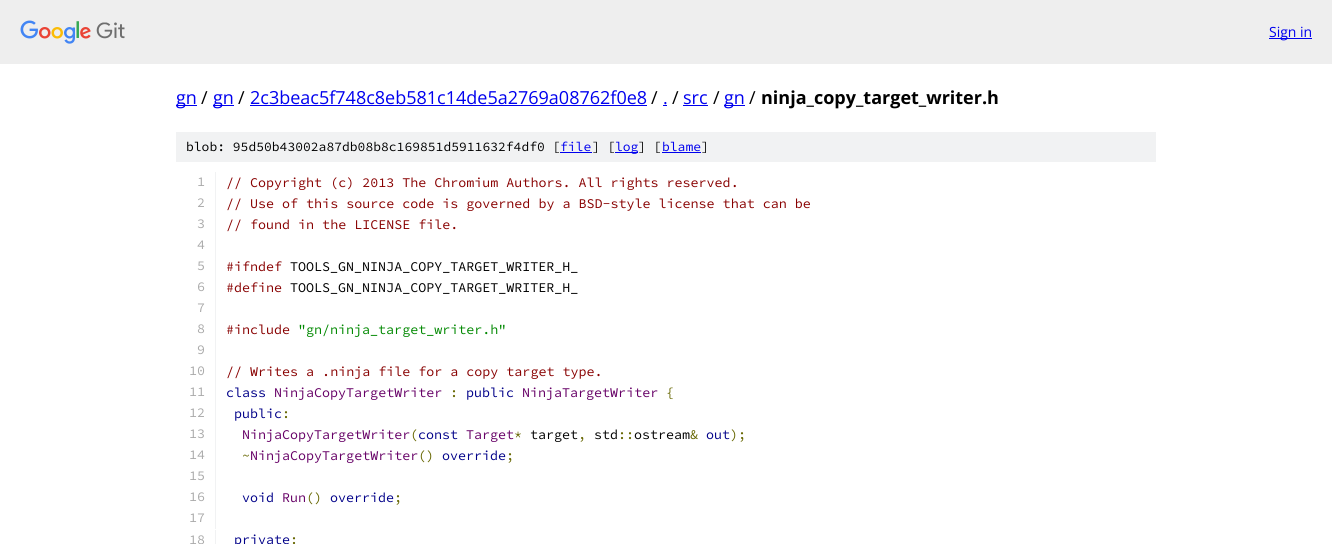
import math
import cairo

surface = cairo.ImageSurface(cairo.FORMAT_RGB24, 1332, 544)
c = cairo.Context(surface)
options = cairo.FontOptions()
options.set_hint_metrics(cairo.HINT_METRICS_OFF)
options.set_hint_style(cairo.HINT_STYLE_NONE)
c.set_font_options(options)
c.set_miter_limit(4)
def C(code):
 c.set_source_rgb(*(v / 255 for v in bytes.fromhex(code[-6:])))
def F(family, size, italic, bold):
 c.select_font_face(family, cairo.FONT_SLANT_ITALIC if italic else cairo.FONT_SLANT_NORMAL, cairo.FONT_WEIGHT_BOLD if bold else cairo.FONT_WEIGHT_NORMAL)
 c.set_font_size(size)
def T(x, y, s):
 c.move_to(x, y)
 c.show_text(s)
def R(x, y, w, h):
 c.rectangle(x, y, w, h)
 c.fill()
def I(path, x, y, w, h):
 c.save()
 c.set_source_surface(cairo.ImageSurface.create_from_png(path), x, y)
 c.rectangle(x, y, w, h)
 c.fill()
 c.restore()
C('ffffff')
c.paint()
C('eeeeee')
R(0,0,1332,64)
I('1.png',20,20,105,24)
C('0000ee')
R(1269,38,43,1)
F('Open Sans',14,0,0)
T(1269,37,'Sign in')
R(176,105,21,1)
F('Open Sans',18,0,0)
T(176,104,'gn')
C('000000')
T(201,104,'/')
C('0000ee')
R(213,105,21,1)
T(213,104,'gn')
C('000000')
T(238,104,'/')
C('0000ee')
T(250,104,'2c3beac5f748c8eb581c14de5a2769a08762f0e8')
R(250,105,397,1)
C('000000')
T(651,104,'/')
C('0000ee')
T(663,104,'.')
R(663,105,4,1)
C('000000')
T(672,104,'/')
C('0000ee')
T(683,104,'src')
R(683,105,25,1)
C('000000')
T(713,104,'/')
C('0000ee')
R(724,105,21,1)
T(724,104,'gn')
C('000000')
T(749,104,'/')
F('Open Sans',18,0,1)
T(761,104,'ninja_copy_target_writer.h')
C('f1f2f3')
R(176,132,980,30)
F('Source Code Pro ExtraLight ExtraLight',13,0,0)
C('000000')
T(186,151,'blob: 95d50b43002a87db08b8c169851d5911632f4df0 [')
C('0000ee')
T(560,151,'file')
R(560,152,32,1)
C('000000')
T(592,151,'] [')
C('0000ee')
R(615,152,23,1)
T(615,151,'log')
C('000000')
T(638,151,'] [')
C('0000ee')
T(662,151,'blame')
R(662,152,39,1)
C('000000')
T(701,151,']')
C('f1f2f3')
R(215,172,1,357)
F('Source Code Pro ExtraLight ExtraLight',13.35,0,0)
C('aaaaaa')
T(197,186,'1')
C('880000')
T(226,187,'// Copyright (c) 2013 The Chromium Authors. All rights reserved.')
C('aaaaaa')
T(197,207,'2')
C('880000')
T(226,208,'// Use of this source code is governed by a BSD-style license that can be')
C('aaaaaa')
T(197,228,'3')
C('880000')
T(226,229,'// found in the LICENSE file.')
C('aaaaaa')
T(197,249,'4')
T(197,270,'5')
C('880000')
T(226,271,'#ifndef')
C('000000')
T(290,271,'TOOLS_GN_NINJA_COPY_TARGET_WRITER_H_')
C('aaaaaa')
T(197,291,'6')
C('880000')
T(226,292,'#define')
C('000000')
T(290,292,'TOOLS_GN_NINJA_COPY_TARGET_WRITER_H_')
C('aaaaaa')
T(197,312,'7')
T(197,333,'8')
C('880000')
T(226,334,'#include')
C('008800')
T(298,334,'"gn/ninja_target_writer.h"')
C('aaaaaa')
T(197,354,'9')
T(189,375,'10')
C('880000')
T(226,376,'// Writes a .ninja file for a copy target type.')
C('aaaaaa')
T(189,396,'11')
C('000088')
T(226,397,'class')
C('660066')
T(274,397,'NinjaCopyTargetWriter')
C('666600')
T(450,397,':')
C('000088')
T(466,397,'public')
C('660066')
T(522,397,'NinjaTargetWriter')
C('666600')
T(666,397,'{')
C('aaaaaa')
T(189,417,'12')
C('000088')
T(234,418,'public')
C('666600')
T(282,418,':')
C('aaaaaa')
T(189,438,'13')
C('660066')
T(242,439,'NinjaCopyTargetWriter')
C('666600')
T(410,439,'(')
C('000088')
T(418,439,'const')
C('660066')
T(466,439,'Target')
C('666600')
T(514,439,'*')
C('000000')
T(530,439,'target')
C('666600')
T(578,439,',')
C('000000')
T(594,439,'std')
C('666600')
T(618,439,'::')
C('000000')
T(634,439,'ostream')
C('666600')
T(690,439,'&')
C('000088')
T(706,439,'out')
C('666600')
T(730,439,');')
C('aaaaaa')
T(189,459,'14')
C('666600')
T(242,460,'~')
C('660066')
T(250,460,'NinjaCopyTargetWriter')
C('666600')
T(418,460,'()')
C('000088')
T(442,460,'override')
C('666600')
T(506,460,';')
C('aaaaaa')
T(189,480,'15')
T(189,501,'16')
C('000088')
T(242,502,'void')
C('660066')
T(282,502,'Run')
C('666600')
T(306,502,'()')
C('000088')
T(330,502,'override')
C('666600')
T(394,502,';')
C('aaaaaa')
T(189,522,'17')
C('f1f2f3')
R(215,530,1,14)
C('aaaaaa')
T(189,544,'18')
C('000088')
T(234,544,'private')
C('666600')
T(290,544,':')
surface.write_to_png('o.png')
